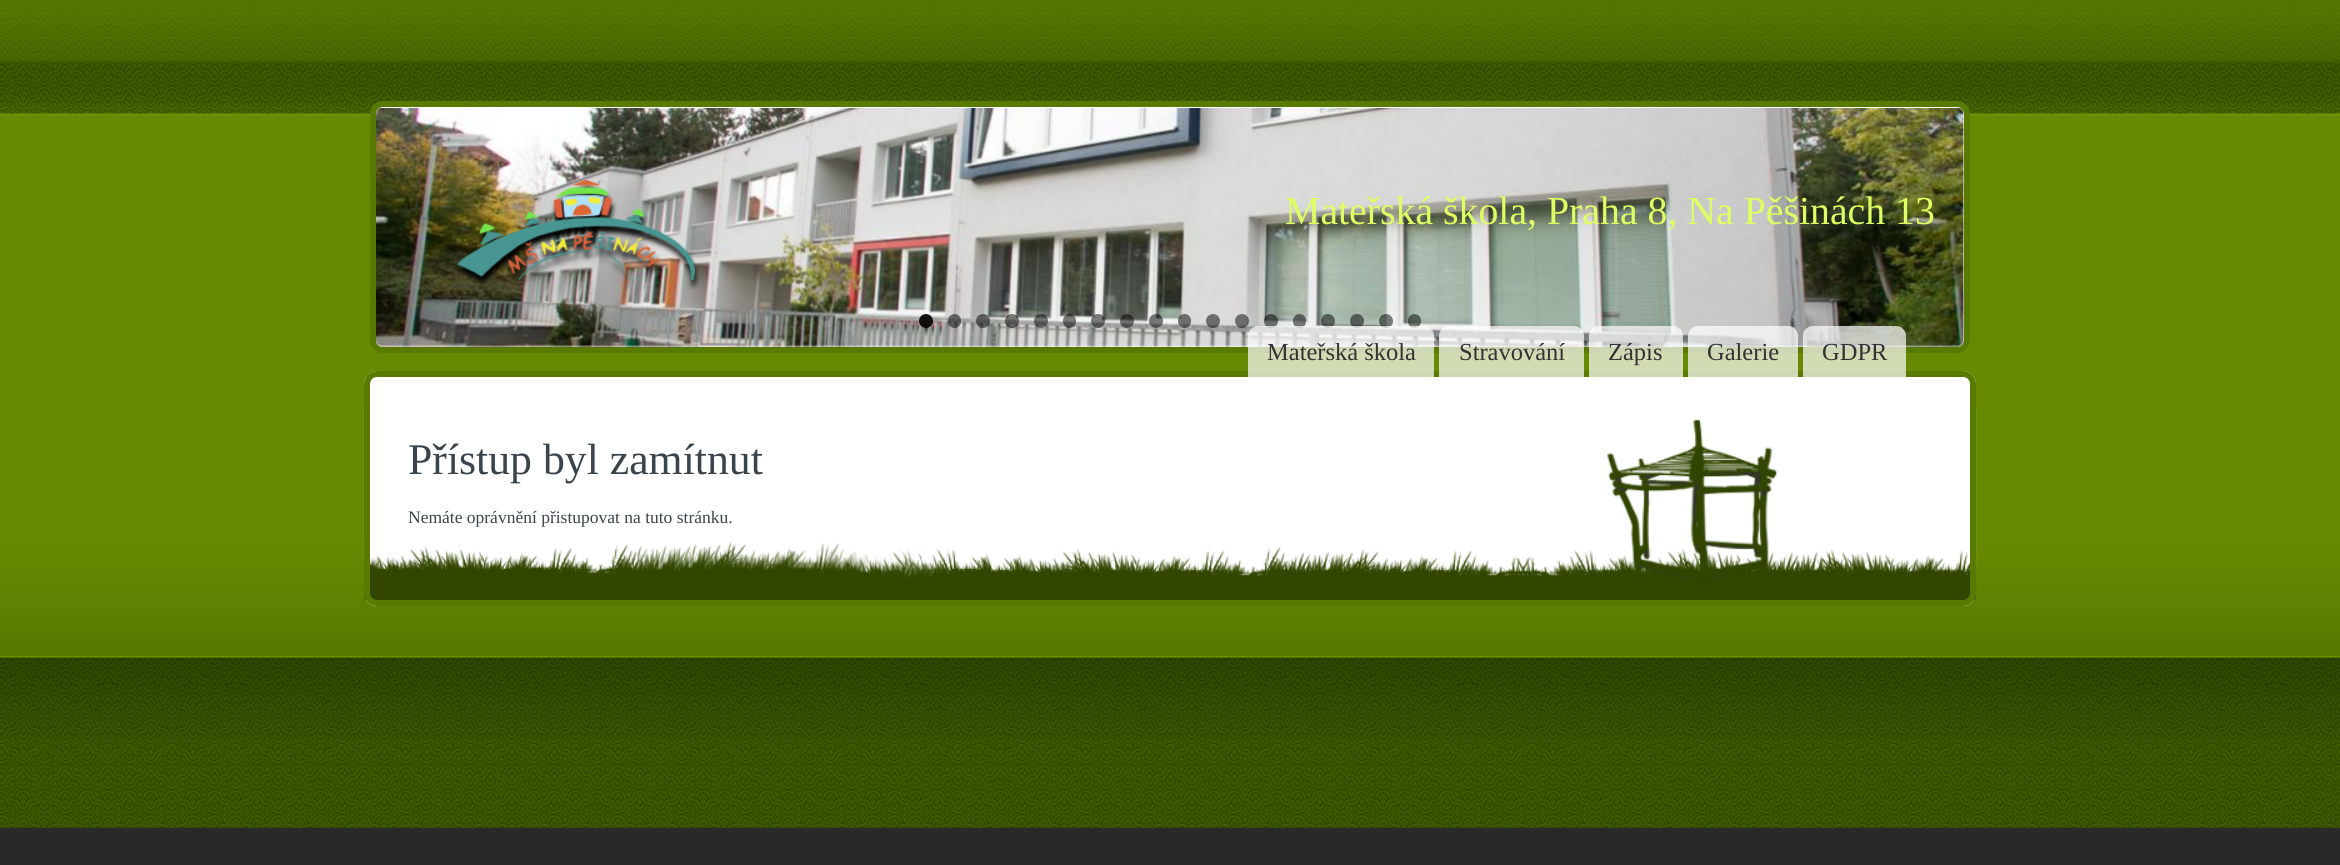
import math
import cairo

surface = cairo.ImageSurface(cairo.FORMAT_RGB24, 2340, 865)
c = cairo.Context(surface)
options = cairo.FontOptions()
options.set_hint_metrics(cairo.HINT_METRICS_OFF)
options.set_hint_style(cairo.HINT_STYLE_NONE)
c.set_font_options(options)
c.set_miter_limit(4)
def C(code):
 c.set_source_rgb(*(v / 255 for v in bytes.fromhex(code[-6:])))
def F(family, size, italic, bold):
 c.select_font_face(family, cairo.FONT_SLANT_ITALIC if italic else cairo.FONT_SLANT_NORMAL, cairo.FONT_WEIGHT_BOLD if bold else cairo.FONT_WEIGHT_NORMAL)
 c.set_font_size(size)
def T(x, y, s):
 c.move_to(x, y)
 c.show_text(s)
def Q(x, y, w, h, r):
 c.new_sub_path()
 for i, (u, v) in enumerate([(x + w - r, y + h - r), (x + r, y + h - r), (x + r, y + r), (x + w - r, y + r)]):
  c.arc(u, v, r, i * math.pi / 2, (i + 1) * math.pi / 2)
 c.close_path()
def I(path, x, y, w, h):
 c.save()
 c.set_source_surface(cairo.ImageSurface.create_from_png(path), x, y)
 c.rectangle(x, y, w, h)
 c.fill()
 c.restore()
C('292929')
c.paint()
I('1.png',0,740,2340,88)
I('2.png',0,0,2340,740)
C('ffffff')
Q(373,104,1594,246,10)
c.fill_preserve()
C('597a00')
c.set_line_width(6)
c.stroke()
I('3.png',376,108,1588,239)
c.set_source_rgba(0,0,0,0.9)
c.arc(926,321,7,0,2 * math.pi)
c.fill()
c.set_source_rgba(0,0,0,0.5)
Q(948,314,13,14,6.5)
c.fill()
c.arc(983,321,7,0,2 * math.pi)
c.fill()
c.arc(1012,321,7,0,2 * math.pi)
c.fill()
c.arc(1041,321,7,0,2 * math.pi)
c.fill()
Q(1063,314,13,14,6.5)
c.fill()
c.arc(1098,321,7,0,2 * math.pi)
c.fill()
c.arc(1127,321,7,0,2 * math.pi)
c.fill()
c.arc(1156,321,7,0,2 * math.pi)
c.fill()
Q(1178,314,13,14,6.5)
c.fill()
c.arc(1213,321,7,0,2 * math.pi)
c.fill()
c.arc(1242,321,7,0,2 * math.pi)
c.fill()
c.arc(1271,321,7,0,2 * math.pi)
c.fill()
Q(1293,314,13,14,6.5)
c.fill()
c.arc(1328,321,7,0,2 * math.pi)
c.fill()
c.arc(1357,321,7,0,2 * math.pi)
c.fill()
c.arc(1386,321,7,0,2 * math.pi)
c.fill()
Q(1408,314,13,14,6.5)
c.fill()
I('4.png',456,180,245,110)
F('Liberation Serif',39.8,0,0)
C('deff61')
T(1285,224,'Mateřská škola, Praha 8, Na Pěšinách 13')
C('ffffff')
Q(364,371,1612,235,13)
c.fill()
I('5.png',363,406,1614,194)
Q(367,374,1606,229,10)
C('597a00')
c.stroke()
c.set_source_rgba(1,1,1,0.7)
c.new_path()
c.move_to(1258,326)
c.line_to(1424,326)
c.curve_to(1429.5,326,1434,330.5,1434,336)
c.line_to(1434,378)
c.line_to(1248,378)
c.line_to(1248,336)
c.curve_to(1248,330.5,1252.5,326,1258,326)
c.close_path()
c.fill()
F('Liberation Serif',24.5,0,0)
C('333333')
T(1267,360,'Mateřská škola')
c.set_source_rgba(1,1,1,0.7)
c.new_path()
c.move_to(1449,326)
c.line_to(1574,326)
c.curve_to(1579.5,326,1584,330.5,1584,336)
c.line_to(1584,378)
c.line_to(1439,378)
c.line_to(1439,336)
c.curve_to(1439,330.5,1443.5,326,1449,326)
c.close_path()
c.fill()
C('333333')
T(1459,360,'Stravování')
c.set_source_rgba(1,1,1,0.7)
c.new_path()
c.move_to(1599,326)
c.line_to(1673,326)
c.curve_to(1678.5,326,1683,330.5,1683,336)
c.line_to(1683,378)
c.line_to(1589,378)
c.line_to(1589,336)
c.curve_to(1589,330.5,1593.5,326,1599,326)
c.close_path()
c.fill()
C('333333')
T(1608,360,'Zápis')
c.set_source_rgba(1,1,1,0.7)
c.new_path()
c.move_to(1698,326)
c.line_to(1788,326)
c.curve_to(1793.5,326,1798,330.5,1798,336)
c.line_to(1798,378)
c.line_to(1688,378)
c.line_to(1688,336)
c.curve_to(1688,330.5,1692.5,326,1698,326)
c.close_path()
c.fill()
C('333333')
T(1707,360,'Galerie')
c.set_source_rgba(1,1,1,0.7)
c.new_path()
c.move_to(1813,326)
c.line_to(1896,326)
c.curve_to(1901.5,326,1906,330.5,1906,336)
c.line_to(1906,378)
c.line_to(1803,378)
c.line_to(1803,336)
c.curve_to(1803,330.5,1807.5,326,1813,326)
c.close_path()
c.fill()
C('333333')
T(1822,360,'GDPR')
F('Liberation Serif',43.75,0,0)
C('39444d')
T(408,474,'Přístup byl zamítnut')
F('Liberation Serif',17.5,0,0)
T(408,523,'Nemáte oprávnění přistupovat na tuto stránku.')
I('6.png',0,746,2340,82)
surface.write_to_png('o.png')
